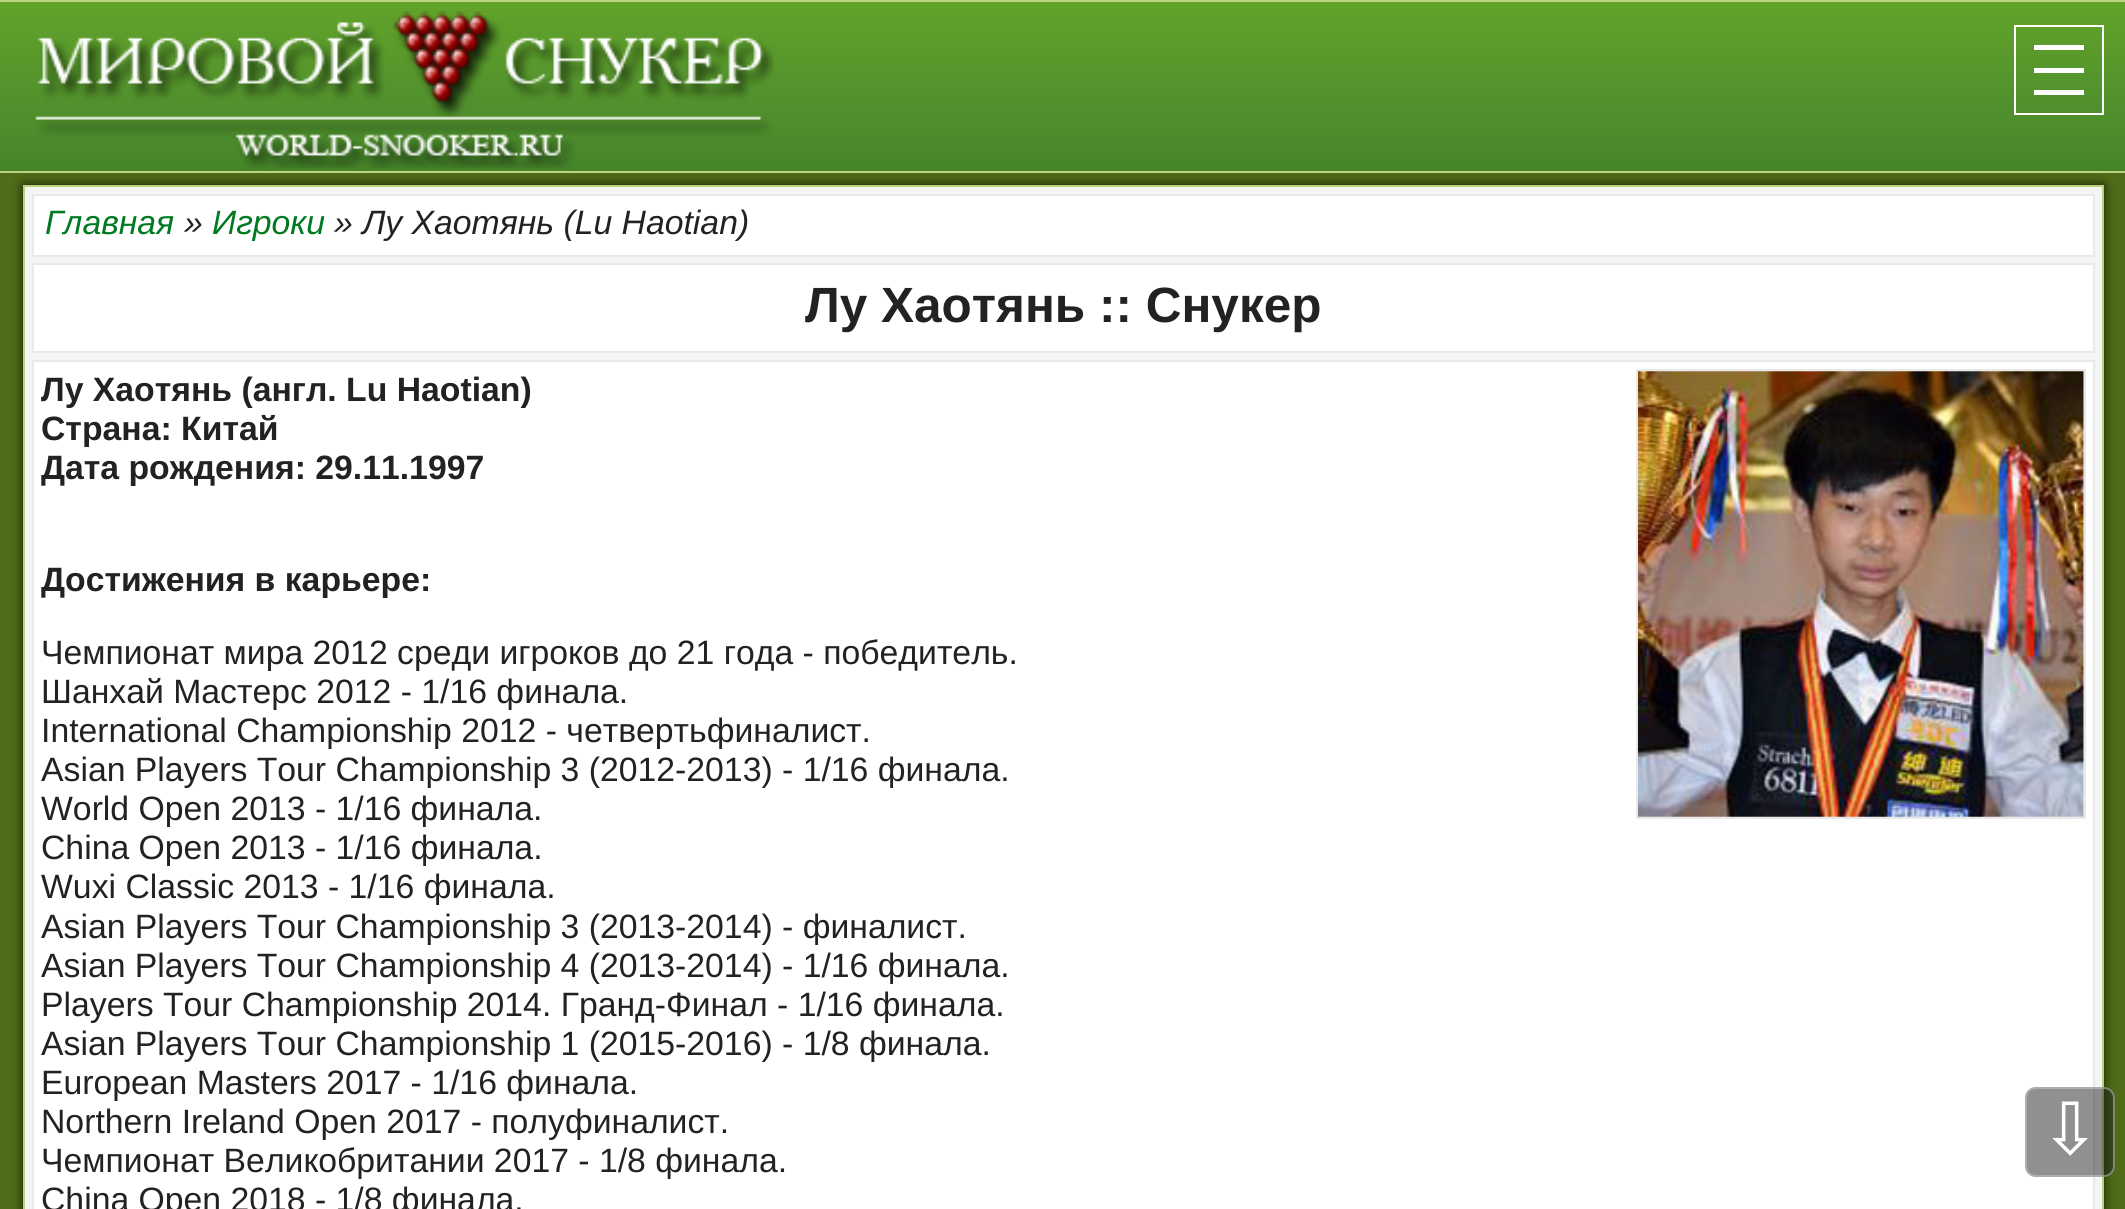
import math
import cairo

surface = cairo.ImageSurface(cairo.FORMAT_RGB24, 2125, 1209)
c = cairo.Context(surface)
options = cairo.FontOptions()
options.set_hint_metrics(cairo.HINT_METRICS_OFF)
options.set_hint_style(cairo.HINT_STYLE_NONE)
c.set_font_options(options)
c.set_miter_limit(4)
def C(code):
 c.set_source_rgb(*(v / 255 for v in bytes.fromhex(code[-6:])))
def F(family, size, italic, bold):
 c.select_font_face(family, cairo.FONT_SLANT_ITALIC if italic else cairo.FONT_SLANT_NORMAL, cairo.FONT_WEIGHT_BOLD if bold else cairo.FONT_WEIGHT_NORMAL)
 c.set_font_size(size)
def T(x, y, s):
 c.move_to(x, y)
 c.show_text(s)
def R(x, y, w, h):
 c.rectangle(x, y, w, h)
 c.fill()
def Q(x, y, w, h, r):
 c.new_sub_path()
 for i, (u, v) in enumerate([(x + w - r, y + h - r), (x + r, y + h - r), (x + r, y + r), (x + w - r, y + r)]):
  c.arc(u, v, r, i * math.pi / 2, (i + 1) * math.pi / 2)
 c.close_path()
def S(x, y, w, h, r, blur, alpha):
 c.push_group_with_content(cairo.CONTENT_ALPHA)
 c.set_operator(cairo.OPERATOR_SOURCE)
 for i in range(15, -16, -2):
  e = blur * i / 6
  if min(w, h) + 2 * e > 0:
   c.set_source_rgba(0, 0, 0, alpha * math.erfc((i - 1) / 8.5) / 2)
   Q(x - e, y - e, w + 2 * e, h + 2 * e, max(0, min(r + e + blur * .6, min(w, h) / 2 + e)))
   c.fill()
 c.mask(c.pop_group())
def I(path, x, y, w, h):
 c.save()
 c.set_source_surface(cairo.ImageSurface.create_from_png(path), x, y)
 c.rectangle(x, y, w, h)
 c.fill()
 c.restore()
C('4f6c18')
c.paint()
C('000000')
S(23,185,2081,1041,0,5.5,.75)
gradient = cairo.LinearGradient(1063,2.2,1063,171)
gradient.add_color_stop_rgba(0,0.38,0.639,0.165,1)
gradient.add_color_stop_rgba(.5,0.329,0.58,0.173,1)
gradient.add_color_stop_rgba(1,0.271,0.522,0.165,1)
c.set_source(gradient)
R(0,2,2125,169)
C('bbd37e')
R(0,0,2125,2)
R(0,171,2125,2)
I('1.png',35,11,740,158)
c.rectangle(2015,26,88,88)
C('ffffff')
c.stroke()
R(2034,68,50,5)
R(2034,45,50,5)
R(2034,90,50,5)
C('f5f5f5')
c.rectangle(24,186,2079,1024)
c.fill_preserve()
C('bbd37e')
c.stroke()
C('ffffff')
c.rectangle(33,195,2061,61)
c.fill_preserve()
C('e9e9e9')
c.stroke()
F('Liberation Sans',33.75,1,0)
C('007a21')
T(45,234,'Главная')
C('222222')
T(184,234,'»')
C('007a21')
T(212,234,'Игроки')
C('222222')
T(334,234,'» Лу Хаотянь (Lu Haotian)')
C('ffffff')
c.rectangle(33,264,2061,88)
c.fill_preserve()
C('e9e9e9')
c.stroke()
F('Liberation Sans',49.5,0,1)
C('222222')
T(805,322,'Лу Хаотянь :: Снукер')
C('ffffff')
c.rectangle(33,361,2061,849)
c.fill_preserve()
C('e9e9e9')
c.stroke()
F('Liberation Sans',33.75,0,1)
C('222222')
T(41,401,'Лу Хаотянь (англ. Lu Haotian)')
T(41,440,'Страна: Китай')
T(41,479,'Дата рождения: 29.11.1997')
c.rectangle(1637,370,448,448)
C('e9e9e9')
c.stroke()
I('2.png',1638,371,446,446)
C('222222')
T(41,591,'Достижения в карьере:')
F('Liberation Sans',33.75,0,0)
T(41,664,'Чемпионат мира 2012 среди игроков до 21 года - победитель.')
T(41,703,'Шанхай Мастерс 2012 - 1/16 финала.')
T(41,742,'International Championship 2012 - четвертьфиналист.')
T(41,781,'Asian Players Tour Championship 3 (2012-2013) - 1/16 финала.')
T(41,820,'World Open 2013 - 1/16 финала.')
T(41,859,'China Open 2013 - 1/16 финала.')
T(41,898,'Wuxi Classic 2013 - 1/16 финала.')
T(41,938,'Asian Players Tour Championship 3 (2013-2014) - финалист.')
T(41,977,'Asian Players Tour Championship 4 (2013-2014) - 1/16 финала.')
T(41,1016,'Players Tour Championship 2014. Гранд-Финал - 1/16 финала.')
T(41,1055,'Asian Players Tour Championship 1 (2015-2016) - 1/8 финала.')
T(41,1094,'European Masters 2017 - 1/16 финала.')
T(41,1133,'Northern Ireland Open 2017 - полуфиналист.')
T(41,1172,'Чемпионат Великобритании 2017 - 1/8 финала.')
T(41,1211,'China Open 2018 - 1/8 финала.')
c.set_source_rgba(0.133,0.133,0.133,0.5)
Q(2025,1087,90,90,11)
c.fill()
Q(2026,1088,88,88,10)
c.set_source_rgba(0.8,0.8,0.8,0.5)
c.stroke()
F('DejaVu Sans',72,0,0)
C('ffffff')
T(2040,1154,'⇩')
surface.write_to_png('o.png')
